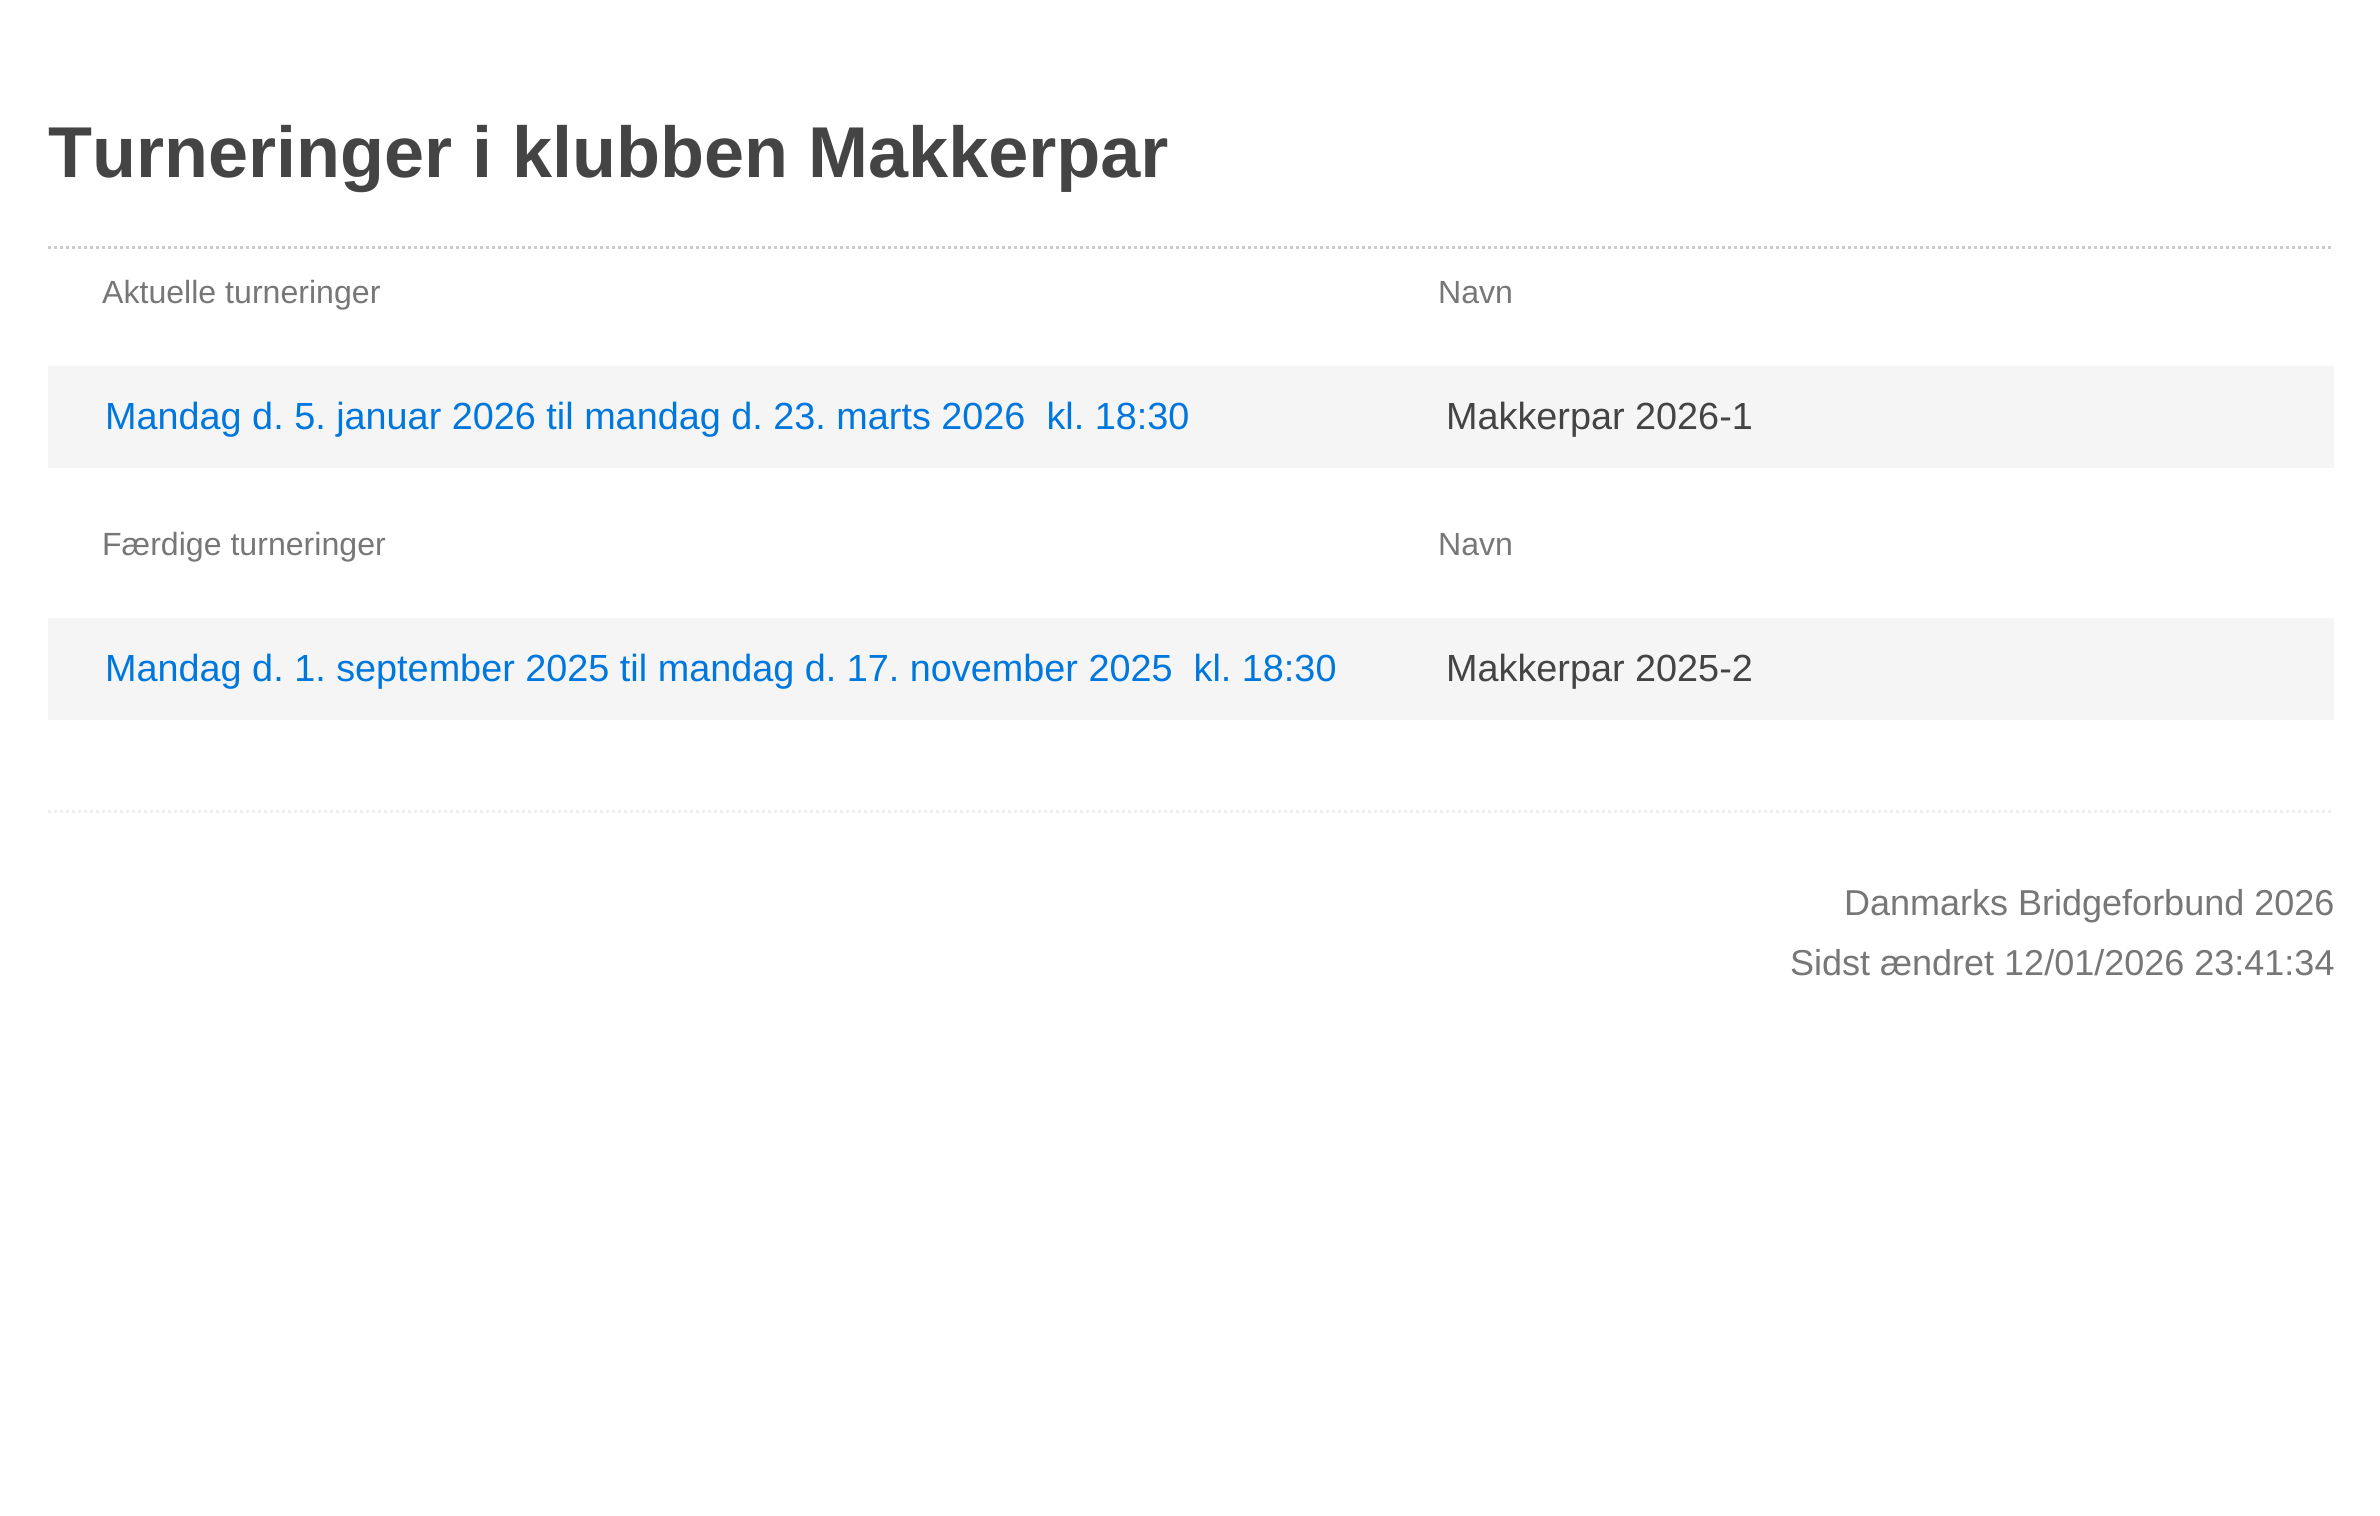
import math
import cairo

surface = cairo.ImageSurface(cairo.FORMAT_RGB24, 2380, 1516)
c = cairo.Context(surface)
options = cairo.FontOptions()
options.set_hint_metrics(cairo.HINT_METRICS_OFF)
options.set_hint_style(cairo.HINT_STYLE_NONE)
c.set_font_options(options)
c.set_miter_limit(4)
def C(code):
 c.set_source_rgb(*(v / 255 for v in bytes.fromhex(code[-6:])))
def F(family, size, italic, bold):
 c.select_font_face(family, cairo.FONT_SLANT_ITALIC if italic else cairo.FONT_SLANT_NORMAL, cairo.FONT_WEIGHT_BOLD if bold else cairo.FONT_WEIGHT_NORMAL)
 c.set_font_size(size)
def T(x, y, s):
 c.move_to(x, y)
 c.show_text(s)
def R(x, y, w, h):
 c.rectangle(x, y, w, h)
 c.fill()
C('ffffff')
c.paint()
c.new_path()
c.move_to(48,247.5)
c.line_to(2334,247.5)
C('cccccc')
c.set_line_width(3)
c.set_dash([3,3])
c.stroke()
F('Liberation Sans',72,0,1)
C('444444')
T(48,177,'Turneringer i klubben Makkerpar')
F('Liberation Sans',32.1,0,0)
C('777777')
T(102,303,'Aktuelle turneringer')
T(1438,303,'Navn')
C('f5f5f5')
R(48,366,2286,102)
F('Liberation Sans',37.8,0,0)
C('0077dd')
T(105,429,'Mandag d. 5. januar 2026 til mandag d. 23. marts 2026  kl. 18:30')
C('444444')
T(1446,429,'Makkerpar 2026-1')
F('Liberation Sans',32.1,0,0)
C('777777')
T(102,555,'Færdige turneringer')
T(1438,555,'Navn')
C('f5f5f5')
R(48,618,2286,102)
F('Liberation Sans',37.8,0,0)
C('0077dd')
T(105,681,'Mandag d. 1. september 2025 til mandag d. 17. november 2025  kl. 18:30')
C('444444')
T(1446,681,'Makkerpar 2025-2')
c.new_path()
c.move_to(48,811.5)
c.line_to(2334,811.5)
C('eeeeee')
c.stroke()
F('Liberation Sans',36,0,0)
C('777777')
T(1844,915,'Danmarks Bridgeforbund 2026')
T(1790,975,'Sidst ændret 12/01/2026 23:41:34')
surface.write_to_png('o.png')
